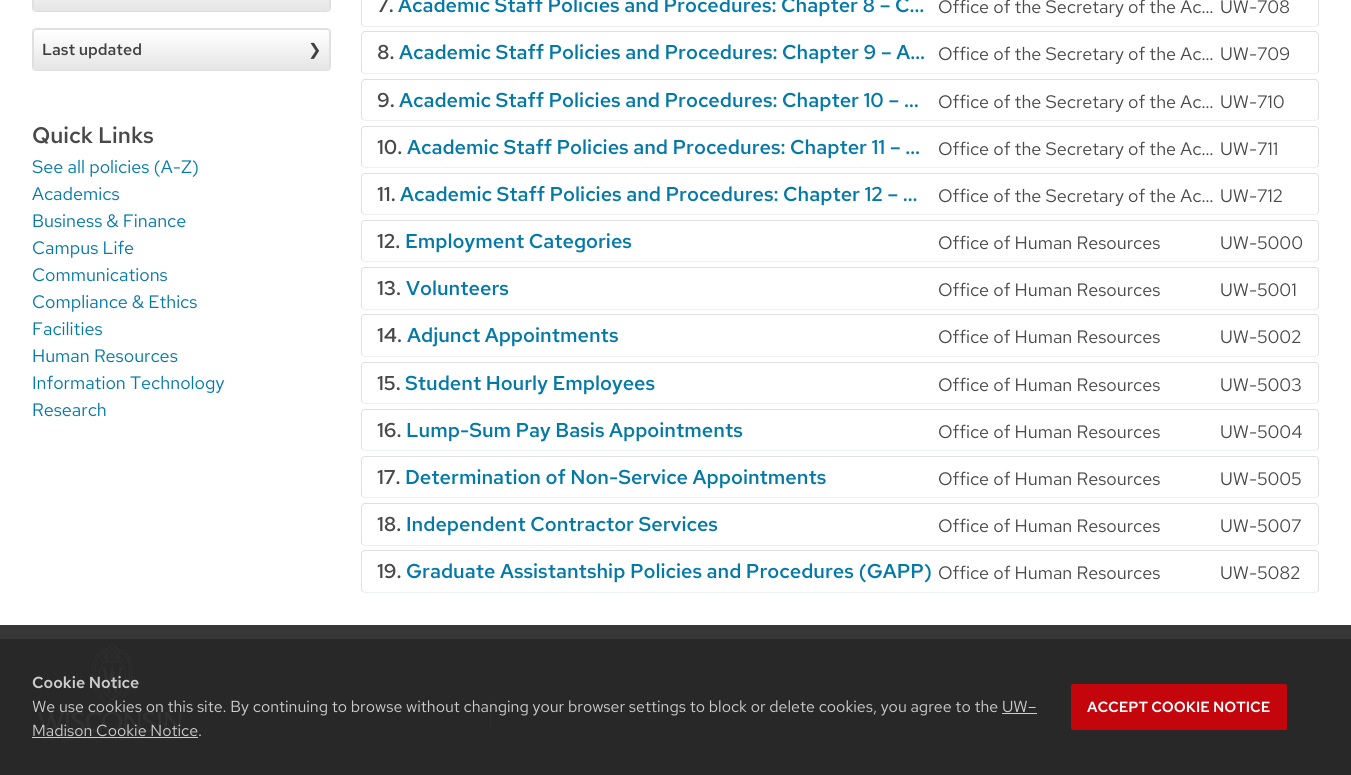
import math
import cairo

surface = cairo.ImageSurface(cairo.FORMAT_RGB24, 1351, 775)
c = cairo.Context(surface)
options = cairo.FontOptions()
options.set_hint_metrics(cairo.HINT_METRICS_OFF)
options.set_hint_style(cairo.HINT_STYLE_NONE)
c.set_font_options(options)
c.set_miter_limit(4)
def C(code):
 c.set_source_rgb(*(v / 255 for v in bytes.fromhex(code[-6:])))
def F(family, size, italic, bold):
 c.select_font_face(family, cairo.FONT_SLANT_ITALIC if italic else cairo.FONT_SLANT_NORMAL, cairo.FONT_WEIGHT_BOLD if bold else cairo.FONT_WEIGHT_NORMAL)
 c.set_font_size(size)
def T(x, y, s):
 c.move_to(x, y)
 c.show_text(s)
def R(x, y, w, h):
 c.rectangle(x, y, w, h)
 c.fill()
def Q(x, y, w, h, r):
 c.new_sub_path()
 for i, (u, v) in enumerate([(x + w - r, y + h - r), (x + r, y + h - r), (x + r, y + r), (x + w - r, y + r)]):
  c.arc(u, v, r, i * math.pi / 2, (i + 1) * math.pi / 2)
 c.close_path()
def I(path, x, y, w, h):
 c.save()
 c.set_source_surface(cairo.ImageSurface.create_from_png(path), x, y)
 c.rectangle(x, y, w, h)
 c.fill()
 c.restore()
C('ffffff')
c.paint()
Q(32.5,-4.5,298,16,3.5)
C('dfdfdf')
c.set_line_width(1)
c.stroke()
c.set_source_rgba(0,0,0,0.03)
R(33,7,297,4)
c.save()
Q(33,-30,297,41,4)
c.clip()
gradient = cairo.LinearGradient(182,-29,182,11)
gradient.add_color_stop_rgba(0,1,1,1,1)
gradient.add_color_stop_rgba(1,0.898,0.898,0.898,1)
c.set_source(gradient)
c.new_path()
c.move_to(33,-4)
c.line_to(330,-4)
c.line_to(330,7)
c.curve_to(330,9,328,11,326,11)
c.line_to(37,11)
c.curve_to(35,11,33,9,33,7)
c.close_path()
c.fill()
c.restore()
C('e0e0e0')
c.set_fill_rule(cairo.FILL_RULE_EVEN_ODD)
c.new_path()
c.move_to(37,-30)
c.line_to(326,-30)
c.curve_to(328,-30,330,-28,330,-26)
c.line_to(330,7)
c.curve_to(330,9,328,11,326,11)
c.line_to(37,11)
c.curve_to(35,11,33,9,33,7)
c.line_to(33,-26)
c.curve_to(33,-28,35,-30,37,-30)
c.close_path()
c.move_to(37,-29)
c.line_to(326,-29)
c.curve_to(328,-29,329,-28,329,-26)
c.line_to(329,7)
c.curve_to(329,9,328,11,326,11)
c.line_to(37,11)
c.curve_to(35,11,34,9,34,7)
c.line_to(34,-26)
c.curve_to(34,-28,35,-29,37,-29)
c.close_path()
c.fill()
Q(32.5,28.5,298,42,3.5)
C('dfdfdf')
c.stroke()
c.set_source_rgba(0,0,0,0.03)
R(33,29,297,41)
c.save()
c.set_fill_rule(cairo.FILL_RULE_WINDING)
Q(33,29,297,41,4)
c.clip()
gradient = cairo.LinearGradient(182,30,182,70)
gradient.add_color_stop_rgba(0,1,1,1,1)
gradient.add_color_stop_rgba(1,0.898,0.898,0.898,1)
c.set_source(gradient)
c.new_path()
c.move_to(33,30)
c.line_to(330,30)
c.line_to(330,66)
c.curve_to(330,68,328,70,326,70)
c.line_to(37,70)
c.curve_to(35,70,33,68,33,66)
c.close_path()
c.fill()
c.restore()
C('e0e0e0')
c.new_path()
c.move_to(37,29)
c.line_to(326,29)
c.curve_to(328,29,330,31,330,33)
c.line_to(330,66)
c.curve_to(330,68,328,70,326,70)
c.line_to(37,70)
c.curve_to(35,70,33,68,33,66)
c.line_to(33,33)
c.curve_to(33,31,35,29,37,29)
c.close_path()
c.move_to(37,30)
c.line_to(326,30)
c.curve_to(328,30,329,31,329,33)
c.line_to(329,66)
c.curve_to(329,68,328,70,326,70)
c.line_to(37,70)
c.curve_to(35,70,34,68,34,66)
c.line_to(34,33)
c.curve_to(34,31,35,30,37,30)
c.close_path()
c.fill()
F('Red Hat Text Medium',16,0,0)
C('404040')
T(42,55,'Last updated')
F('DejaVu Sans',16,0,0)
T(308,55,'❯')
F('Red Hat Text Medium',22.5,0,0)
C('494949')
T(32,143,'Quick Links')
F('Red Hat Text',18,0,0)
C('0479a8')
T(32,173,'See all policies (A-Z)')
T(32,200,'Academics')
T(32,227,'Business & Finance')
T(32,254,'Campus Life')
T(32,281,'Communications')
T(32,308,'Compliance & Ethics')
T(32,335,'Facilities')
T(32,362,'Human Resources')
T(32,389,'Information Technology')
T(32,416,'Research')
c.new_path()
c.move_to(1317.5,25.5)
c.line_to(1315,26.5)
c.line_to(365,26.5)
c.line_to(362.5,25.5)
C('dee2e6')
c.set_dash([1,1])
c.stroke()
c.new_path()
c.move_to(362.5,25.5)
c.curve_to(362,25,361.5,24,361.5,23)
c.line_to(361.5,-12)
c.curve_to(361.5,-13,362,-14,362.5,-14.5)
c.curve_to(363,-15,364,-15.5,365,-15.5)
c.line_to(1315,-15.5)
c.curve_to(1316,-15.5,1317,-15,1317.5,-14.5)
c.curve_to(1318,-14,1318.5,-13,1318.5,-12)
c.line_to(1318.5,23)
c.curve_to(1318.5,24,1318,25,1317.5,25.5)
C('e0e0e0')
c.set_dash([])
c.stroke()
F('Red Hat Text Medium',20,0,0)
C('494949')
T(377,12,'7.')
C('0479a8')
T(398,12,'Academic Staff Policies and Procedures: Chapter 8 – C…')
F('Red Hat Text',18,0,0)
C('494949')
T(938,13,'Office of the Secretary of the Ac…')
T(1220,13,'UW-708')
c.new_path()
c.move_to(1317.5,72.5)
c.line_to(1315,73.5)
c.line_to(365,73.5)
c.line_to(362.5,72.5)
C('dee2e6')
c.set_dash([1,1])
c.stroke()
c.new_path()
c.move_to(362.5,72.5)
c.curve_to(362,72,361.5,71,361.5,70)
c.line_to(361.5,35)
c.curve_to(361.5,34,362,33,362.5,32.5)
c.curve_to(363,32,364,31.5,365,31.5)
c.line_to(1315,31.5)
c.curve_to(1316,31.5,1317,32,1317.5,32.5)
c.curve_to(1318,33,1318.5,34,1318.5,35)
c.line_to(1318.5,70)
c.curve_to(1318.5,71,1318,72,1317.5,72.5)
C('e0e0e0')
c.set_dash([])
c.stroke()
F('Red Hat Text Medium',20,0,0)
C('494949')
T(377,59,'8.')
C('0479a8')
T(399,59,'Academic Staff Policies and Procedures: Chapter 9 – A…')
F('Red Hat Text',18,0,0)
C('494949')
T(938,60,'Office of the Secretary of the Ac…')
T(1220,60,'UW-709')
c.new_path()
c.move_to(1317.5,119.5)
c.line_to(1315,120.5)
c.line_to(365,120.5)
c.line_to(362.5,119.5)
C('dee2e6')
c.set_dash([1,1])
c.stroke()
c.new_path()
c.move_to(362.5,119.5)
c.curve_to(362,119,361.5,118,361.5,117)
c.line_to(361.5,83)
c.curve_to(361.5,82,362,81,362.5,80.5)
c.curve_to(363,80,364,79.5,365,79.5)
c.line_to(1315,79.5)
c.curve_to(1316,79.5,1317,80,1317.5,80.5)
c.curve_to(1318,81,1318.5,82,1318.5,83)
c.line_to(1318.5,117)
c.curve_to(1318.5,118,1318,119,1317.5,119.5)
C('e0e0e0')
c.set_dash([])
c.stroke()
F('Red Hat Text Medium',20,0,0)
C('494949')
T(377,107,'9.')
C('0479a8')
T(399,107,'Academic Staff Policies and Procedures: Chapter 10 – …')
F('Red Hat Text',18,0,0)
C('494949')
T(938,108,'Office of the Secretary of the Ac…')
T(1220,108,'UW-710')
c.new_path()
c.move_to(1317.5,166.5)
c.line_to(1315,167.5)
c.line_to(365,167.5)
c.line_to(362.5,166.5)
C('dee2e6')
c.set_dash([1,1])
c.stroke()
c.new_path()
c.move_to(362.5,166.5)
c.curve_to(362,166,361.5,165,361.5,164)
c.line_to(361.5,130)
c.curve_to(361.5,129,362,128,362.5,127.5)
c.curve_to(363,127,364,126.5,365,126.5)
c.line_to(1315,126.5)
c.curve_to(1316,126.5,1317,127,1317.5,127.5)
c.curve_to(1318,128,1318.5,129,1318.5,130)
c.line_to(1318.5,164)
c.curve_to(1318.5,165,1318,166,1317.5,166.5)
C('e0e0e0')
c.set_dash([])
c.stroke()
F('Red Hat Text Medium',20,0,0)
C('494949')
T(377,154,'10.')
C('0479a8')
T(407,154,'Academic Staff Policies and Procedures: Chapter 11 – …')
F('Red Hat Text',18,0,0)
C('494949')
T(938,155,'Office of the Secretary of the Ac…')
T(1220,155,'UW-711')
c.new_path()
c.move_to(1317.5,213.5)
c.line_to(1315,214.5)
c.line_to(365,214.5)
c.line_to(362.5,213.5)
C('dee2e6')
c.set_dash([1,1])
c.stroke()
c.new_path()
c.move_to(362.5,213.5)
c.curve_to(362,213,361.5,212,361.5,211)
c.line_to(361.5,177)
c.curve_to(361.5,176,362,175,362.5,174.5)
c.curve_to(363,174,364,173.5,365,173.5)
c.line_to(1315,173.5)
c.curve_to(1316,173.5,1317,174,1317.5,174.5)
c.curve_to(1318,175,1318.5,176,1318.5,177)
c.line_to(1318.5,211)
c.curve_to(1318.5,212,1318,213,1317.5,213.5)
C('e0e0e0')
c.set_dash([])
c.stroke()
F('Red Hat Text Medium',20,0,0)
C('494949')
T(377,201,'11.')
C('0479a8')
T(400,201,'Academic Staff Policies and Procedures: Chapter 12 – …')
F('Red Hat Text',18,0,0)
C('494949')
T(938,202,'Office of the Secretary of the Ac…')
T(1220,202,'UW-712')
c.new_path()
c.move_to(1317.5,260.5)
c.line_to(1315,261.5)
c.line_to(365,261.5)
c.line_to(362.5,260.5)
C('dee2e6')
c.set_dash([1,1])
c.stroke()
c.new_path()
c.move_to(362.5,260.5)
c.curve_to(362,260,361.5,259,361.5,258)
c.line_to(361.5,224)
c.curve_to(361.5,223,362,222,362.5,221.5)
c.curve_to(363,221,364,220.5,365,220.5)
c.line_to(1315,220.5)
c.curve_to(1316,220.5,1317,221,1317.5,221.5)
c.curve_to(1318,222,1318.5,223,1318.5,224)
c.line_to(1318.5,258)
c.curve_to(1318.5,259,1318,260,1317.5,260.5)
C('e0e0e0')
c.set_dash([])
c.stroke()
F('Red Hat Text Medium',20,0,0)
C('494949')
T(377,248,'12.')
C('0479a8')
T(405,248,'Employment Categories')
F('Red Hat Text',18,0,0)
C('494949')
T(938,249,'Office of Human Resources')
T(1220,249,'UW-5000')
c.new_path()
c.move_to(1317.5,308.5)
c.line_to(1315,309.5)
c.line_to(365,309.5)
c.line_to(362.5,308.5)
C('dee2e6')
c.set_dash([1,1])
c.stroke()
c.new_path()
c.move_to(362.5,308.5)
c.curve_to(362,308,361.5,307,361.5,306)
c.line_to(361.5,271)
c.curve_to(361.5,270,362,269,362.5,268.5)
c.curve_to(363,268,364,267.5,365,267.5)
c.line_to(1315,267.5)
c.curve_to(1316,267.5,1317,268,1317.5,268.5)
c.curve_to(1318,269,1318.5,270,1318.5,271)
c.line_to(1318.5,306)
c.curve_to(1318.5,307,1318,308,1317.5,308.5)
C('e0e0e0')
c.set_dash([])
c.stroke()
F('Red Hat Text Medium',20,0,0)
C('494949')
T(377,295,'13.')
C('0479a8')
T(406,295,'Volunteers')
F('Red Hat Text',18,0,0)
C('494949')
T(938,296,'Office of Human Resources')
T(1220,296,'UW-5001')
c.new_path()
c.move_to(1317.5,355.5)
c.line_to(1315,356.5)
c.line_to(365,356.5)
c.line_to(362.5,355.5)
C('dee2e6')
c.set_dash([1,1])
c.stroke()
c.new_path()
c.move_to(362.5,355.5)
c.curve_to(362,355,361.5,354,361.5,353)
c.line_to(361.5,318)
c.curve_to(361.5,317,362,316,362.5,315.5)
c.curve_to(363,315,364,314.5,365,314.5)
c.line_to(1315,314.5)
c.curve_to(1316,314.5,1317,315,1317.5,315.5)
c.curve_to(1318,316,1318.5,317,1318.5,318)
c.line_to(1318.5,353)
c.curve_to(1318.5,354,1318,355,1317.5,355.5)
C('e0e0e0')
c.set_dash([])
c.stroke()
F('Red Hat Text Medium',20,0,0)
C('494949')
T(377,342,'14.')
C('0479a8')
T(407,342,'Adjunct Appointments')
F('Red Hat Text',18,0,0)
C('494949')
T(938,343,'Office of Human Resources')
T(1220,343,'UW-5002')
c.new_path()
c.move_to(1317.5,402.5)
c.line_to(1315,403.5)
c.line_to(365,403.5)
c.line_to(362.5,402.5)
C('dee2e6')
c.set_dash([1,1])
c.stroke()
c.new_path()
c.move_to(362.5,402.5)
c.curve_to(362,402,361.5,401,361.5,400)
c.line_to(361.5,366)
c.curve_to(361.5,365,362,364,362.5,363.5)
c.curve_to(363,363,364,362.5,365,362.5)
c.line_to(1315,362.5)
c.curve_to(1316,362.5,1317,363,1317.5,363.5)
c.curve_to(1318,364,1318.5,365,1318.5,366)
c.line_to(1318.5,400)
c.curve_to(1318.5,401,1318,402,1317.5,402.5)
C('e0e0e0')
c.set_dash([])
c.stroke()
F('Red Hat Text Medium',20,0,0)
C('494949')
T(377,390,'15.')
C('0479a8')
T(405,390,'Student Hourly Employees')
F('Red Hat Text',18,0,0)
C('494949')
T(938,391,'Office of Human Resources')
T(1220,391,'UW-5003')
c.new_path()
c.move_to(1317.5,449.5)
c.line_to(1315,450.5)
c.line_to(365,450.5)
c.line_to(362.5,449.5)
C('dee2e6')
c.set_dash([1,1])
c.stroke()
c.new_path()
c.move_to(362.5,449.5)
c.curve_to(362,449,361.5,448,361.5,447)
c.line_to(361.5,413)
c.curve_to(361.5,412,362,411,362.5,410.5)
c.curve_to(363,410,364,409.5,365,409.5)
c.line_to(1315,409.5)
c.curve_to(1316,409.5,1317,410,1317.5,410.5)
c.curve_to(1318,411,1318.5,412,1318.5,413)
c.line_to(1318.5,447)
c.curve_to(1318.5,448,1318,449,1317.5,449.5)
C('e0e0e0')
c.set_dash([])
c.stroke()
F('Red Hat Text Medium',20,0,0)
C('494949')
T(377,437,'16.')
C('0479a8')
T(406,437,'Lump-Sum Pay Basis Appointments')
F('Red Hat Text',18,0,0)
C('494949')
T(938,438,'Office of Human Resources')
T(1220,438,'UW-5004')
c.new_path()
c.move_to(1317.5,496.5)
c.line_to(1315,497.5)
c.line_to(365,497.5)
c.line_to(362.5,496.5)
C('dee2e6')
c.set_dash([1,1])
c.stroke()
c.new_path()
c.move_to(362.5,496.5)
c.curve_to(362,496,361.5,495,361.5,494)
c.line_to(361.5,460)
c.curve_to(361.5,459,362,458,362.5,457.5)
c.curve_to(363,457,364,456.5,365,456.5)
c.line_to(1315,456.5)
c.curve_to(1316,456.5,1317,457,1317.5,457.5)
c.curve_to(1318,458,1318.5,459,1318.5,460)
c.line_to(1318.5,494)
c.curve_to(1318.5,495,1318,496,1317.5,496.5)
C('e0e0e0')
c.set_dash([])
c.stroke()
F('Red Hat Text Medium',20,0,0)
C('494949')
T(377,484,'17.')
C('0479a8')
T(405,484,'Determination of Non-Service Appointments')
F('Red Hat Text',18,0,0)
C('494949')
T(938,485,'Office of Human Resources')
T(1220,485,'UW-5005')
c.new_path()
c.move_to(1317.5,544.5)
c.line_to(1315,545.5)
c.line_to(365,545.5)
c.line_to(362.5,544.5)
C('dee2e6')
c.set_dash([1,1])
c.stroke()
c.new_path()
c.move_to(362.5,544.5)
c.curve_to(362,544,361.5,543,361.5,542)
c.line_to(361.5,507)
c.curve_to(361.5,506,362,505,362.5,504.5)
c.curve_to(363,504,364,503.5,365,503.5)
c.line_to(1315,503.5)
c.curve_to(1316,503.5,1317,504,1317.5,504.5)
c.curve_to(1318,505,1318.5,506,1318.5,507)
c.line_to(1318.5,542)
c.curve_to(1318.5,543,1318,544,1317.5,544.5)
C('e0e0e0')
c.set_dash([])
c.stroke()
F('Red Hat Text Medium',20,0,0)
C('494949')
T(377,531,'18.')
C('0479a8')
T(406,531,'Independent Contractor Services')
F('Red Hat Text',18,0,0)
C('494949')
T(938,532,'Office of Human Resources')
T(1220,532,'UW-5007')
c.new_path()
c.move_to(1317.5,591.5)
c.line_to(1315,592.5)
c.line_to(365,592.5)
c.line_to(362.5,591.5)
C('dee2e6')
c.set_dash([1,1])
c.stroke()
c.new_path()
c.move_to(362.5,591.5)
c.curve_to(362,591,361.5,590,361.5,589)
c.line_to(361.5,554)
c.curve_to(361.5,553,362,552,362.5,551.5)
c.curve_to(363,551,364,550.5,365,550.5)
c.line_to(1315,550.5)
c.curve_to(1316,550.5,1317,551,1317.5,551.5)
c.curve_to(1318,552,1318.5,553,1318.5,554)
c.line_to(1318.5,589)
c.curve_to(1318.5,590,1318,591,1317.5,591.5)
C('e0e0e0')
c.set_dash([])
c.stroke()
F('Red Hat Text Medium',20,0,0)
C('494949')
T(377,578,'19.')
C('0479a8')
T(406,578,'Graduate Assistantship Policies and Procedures (GAPP)')
F('Red Hat Text',18,0,0)
C('494949')
T(938,579,'Office of Human Resources')
T(1220,579,'UW-5082')
C('373737')
R(0,625,1351,14)
C('292829')
R(0,639,1351,136)
I('1.png',37,644,146,97)
C('2e2d2e')
R(490,701,1,27)
F('Red Hat Text SemiBold',16,0,0)
C('cccccc')
T(32,688,'Cookie Notice')
F('Red Hat Text',16,0,0)
T(32,712,'We use cookies on this site. By continuing to browse without changing your browser settings to block or delete cookies, you agree to the UW–')
T(32,736,'Madison Cookie Notice.')
R(1002,713,35,1)
R(32,737,166,1)
C('c5050c')
Q(1071,684,216,46,2)
c.fill()
F('Red Hat Text SemiBold',14.75,0,0)
C('ffffff')
T(1087,712,'ACCEPT COOKIE NOTICE')
surface.write_to_png('o.png')
